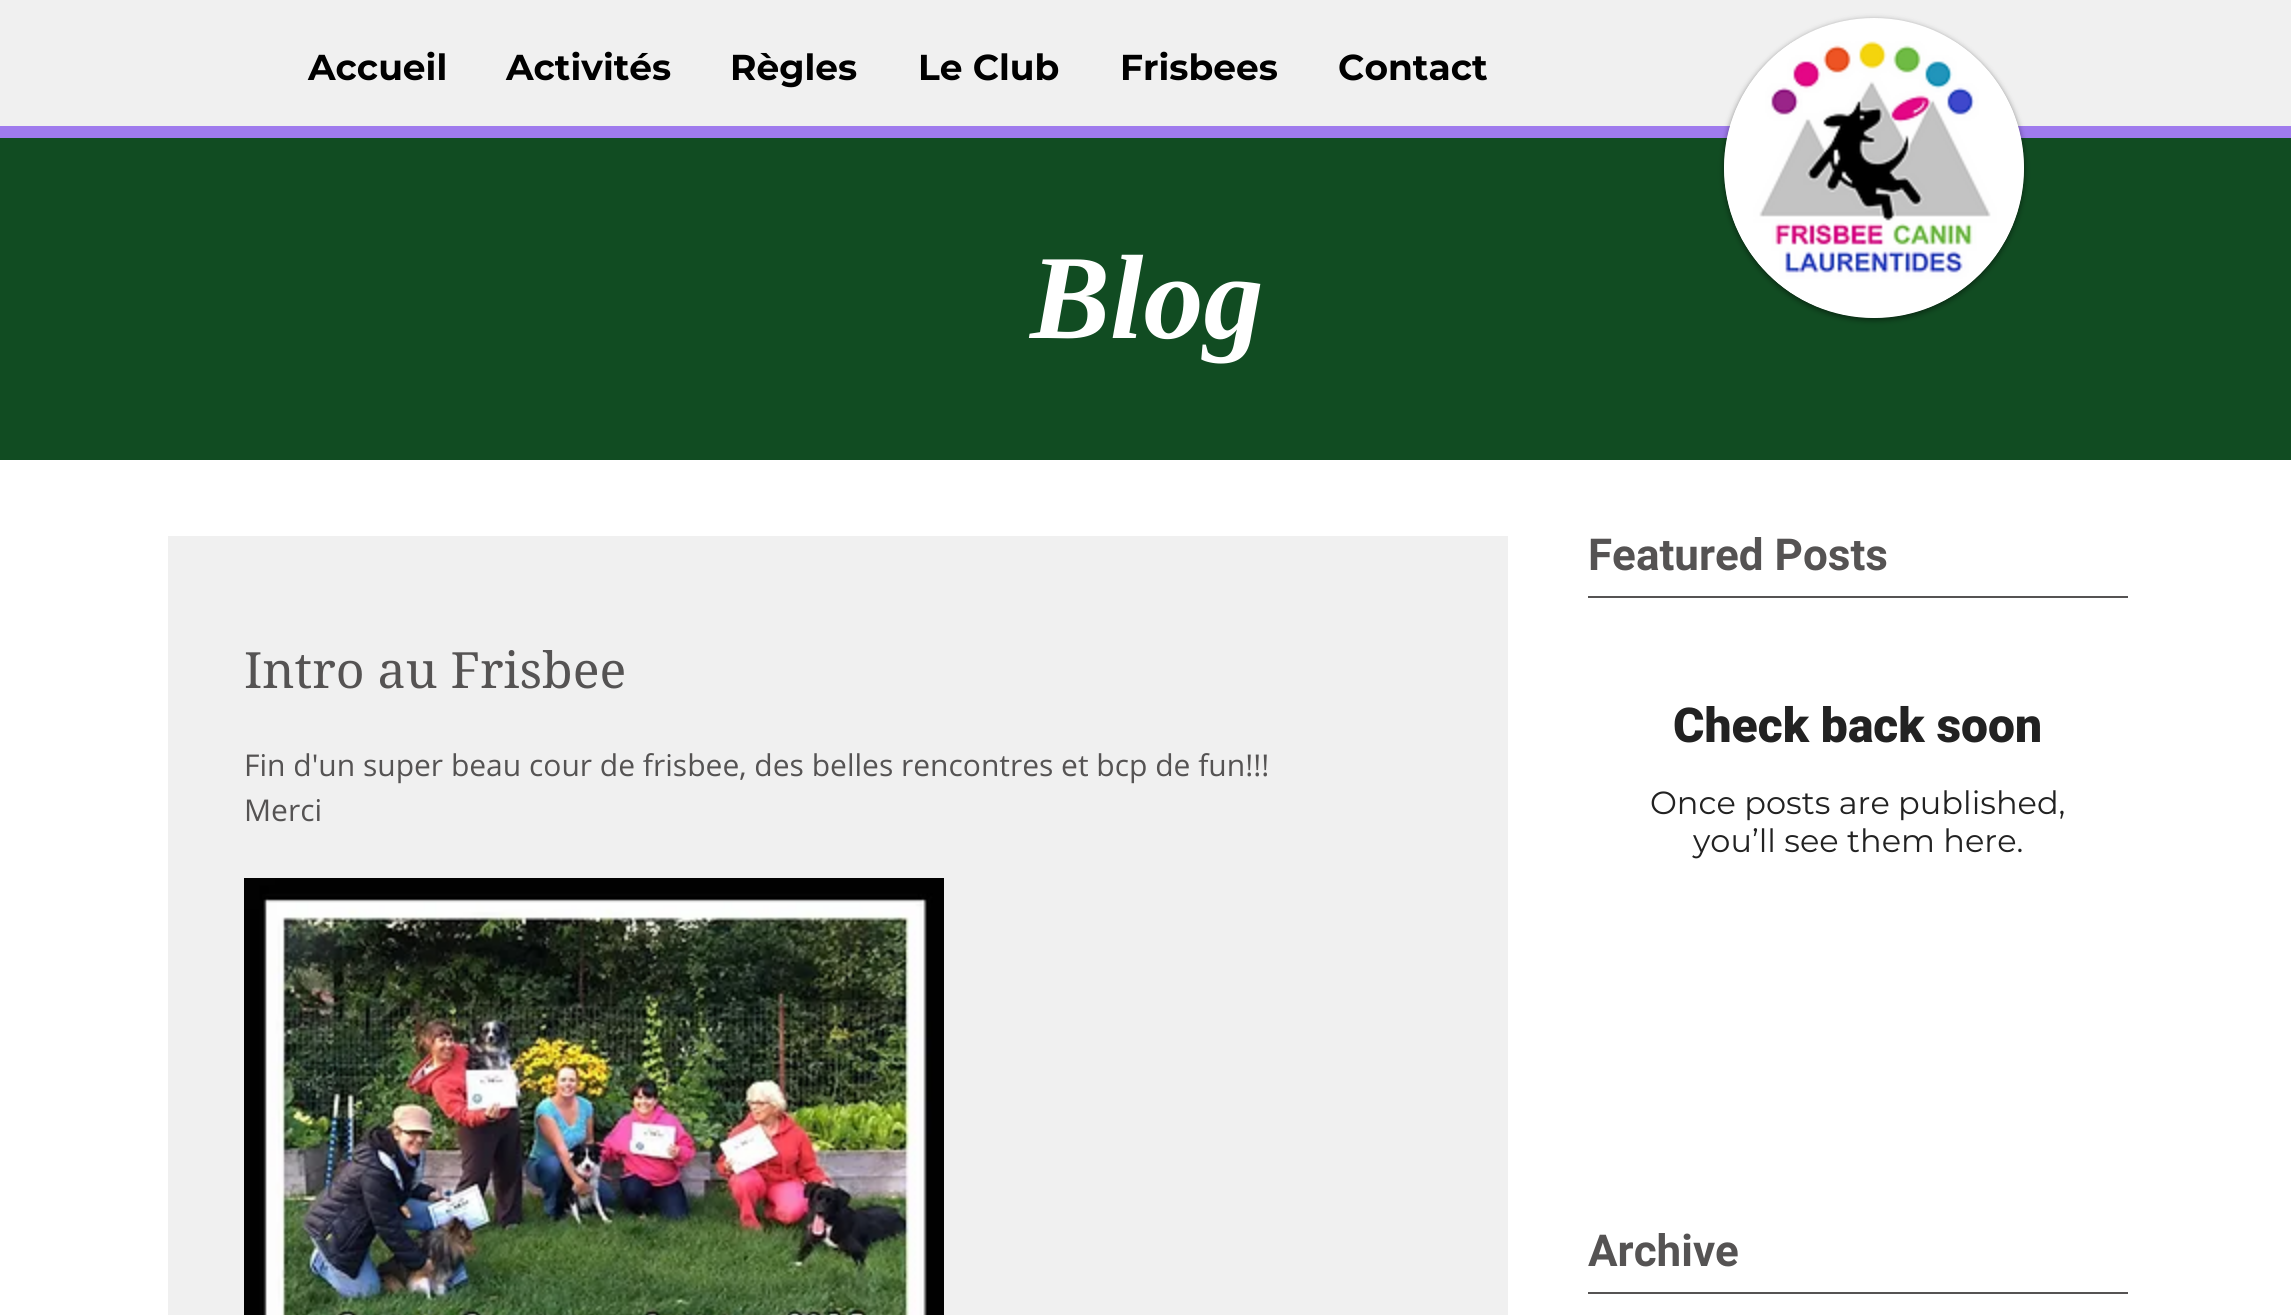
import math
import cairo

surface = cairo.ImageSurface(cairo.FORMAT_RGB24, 2291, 1315)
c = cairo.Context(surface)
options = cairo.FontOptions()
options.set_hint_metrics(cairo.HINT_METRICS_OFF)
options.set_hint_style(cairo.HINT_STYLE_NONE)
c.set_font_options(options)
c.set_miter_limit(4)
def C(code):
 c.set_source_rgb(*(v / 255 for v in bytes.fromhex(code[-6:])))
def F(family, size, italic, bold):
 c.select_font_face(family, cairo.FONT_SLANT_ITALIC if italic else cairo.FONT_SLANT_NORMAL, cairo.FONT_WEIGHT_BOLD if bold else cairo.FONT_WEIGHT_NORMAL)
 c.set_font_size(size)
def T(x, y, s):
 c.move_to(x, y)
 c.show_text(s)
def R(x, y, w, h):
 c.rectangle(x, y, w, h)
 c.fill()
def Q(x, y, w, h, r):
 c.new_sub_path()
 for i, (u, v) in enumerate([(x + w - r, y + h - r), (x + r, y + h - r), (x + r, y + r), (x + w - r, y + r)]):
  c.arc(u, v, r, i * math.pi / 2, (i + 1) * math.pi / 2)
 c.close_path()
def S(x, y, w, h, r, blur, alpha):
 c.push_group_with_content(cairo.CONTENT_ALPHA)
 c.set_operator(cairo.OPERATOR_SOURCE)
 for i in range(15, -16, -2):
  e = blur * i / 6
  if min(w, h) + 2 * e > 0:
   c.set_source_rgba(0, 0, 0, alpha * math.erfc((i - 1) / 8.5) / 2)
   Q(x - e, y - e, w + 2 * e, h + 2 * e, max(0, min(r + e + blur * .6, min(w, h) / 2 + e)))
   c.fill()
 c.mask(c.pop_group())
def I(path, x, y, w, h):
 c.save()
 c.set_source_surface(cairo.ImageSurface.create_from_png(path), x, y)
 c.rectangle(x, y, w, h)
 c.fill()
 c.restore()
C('114c22')
c.paint()
C('f0f0f0')
R(0,0,2291,126)
C('9f7bed')
R(0,126,2291,12)
F('Montserrat',36,0,1)
C('000000')
T(308,80,'Accueil')
T(506,80,'Activités')
T(730,80,'Règles')
T(918,80,'Le Club')
T(1120,80,'Frisbees')
T(1338,80,'Contact')
C('000000')
S(1724,20,300,300,150,3,.5)
C('ffffff')
c.arc(1874,168,150,0,2 * math.pi)
c.fill()
I('1.png',1724,41,300,277)
F('Liberation Serif',120,1,1)
T(1030,338,'Blog')
R(0,460,2291,855)
F('Roboto',44,0,1)
C('555353')
T(1588,570,'Featured Posts')
R(1588,596,540,2)
C('f0f0f0')
R(168,536,1340,779)
F('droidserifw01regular',50,0,0)
C('555353')
T(244,688,'Intro au Frisbee')
F('Open Sans',30,0,0)
T(244,776,'Fin d\'un super beau cour de frisbee, des belles rencontres et bcp de fun!!!')
T(244,821,'Merci')
I('2.png',244,878,700,437)
F('Roboto Black',48,0,0)
C('222222')
T(1673,742,'Check back soon')
F('Montserrat',32,0,0)
T(1650,814,'Once posts are published,')
T(1693,852,'you’ll see them here.')
F('Roboto',44,0,1)
C('555353')
T(1588,1266,'Archive')
R(1588,1292,540,2)
surface.write_to_png('o.png')
